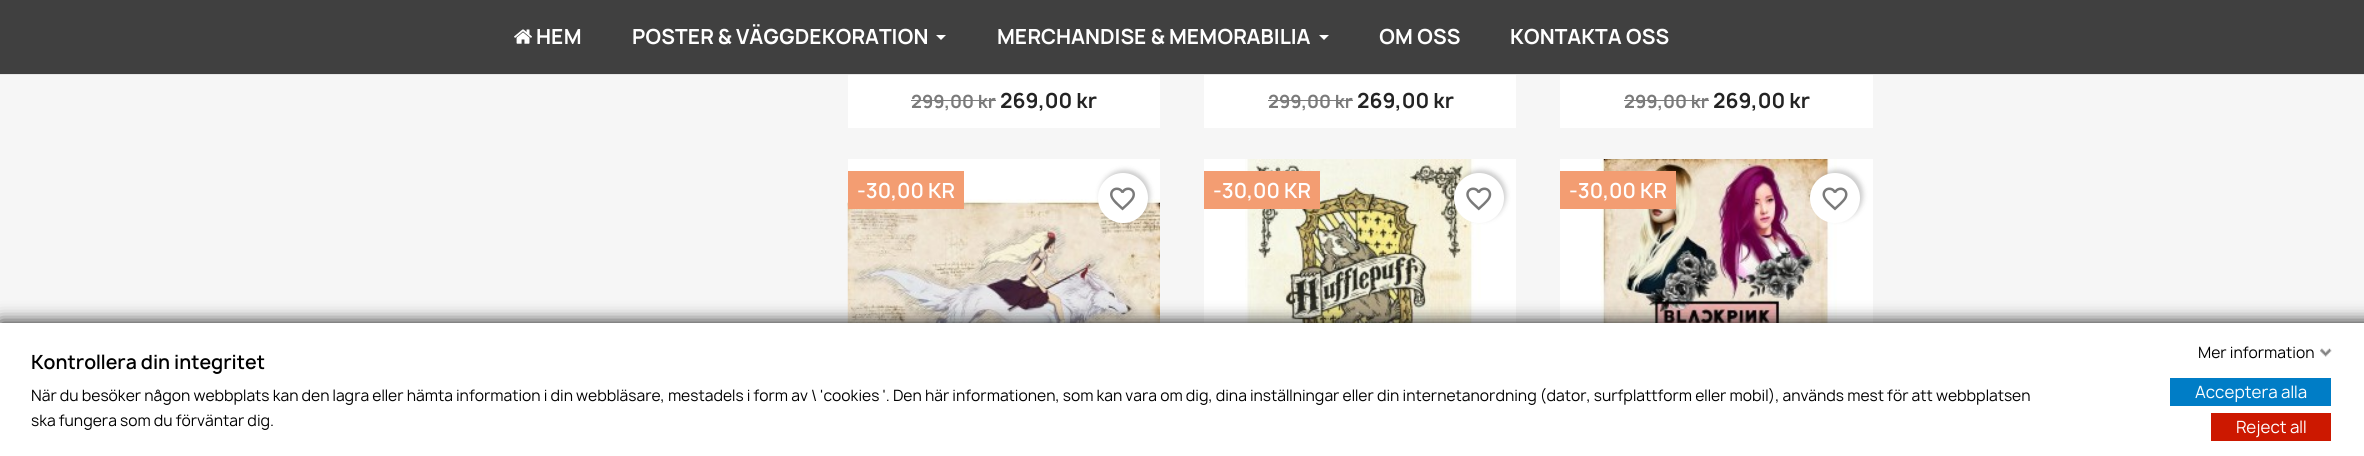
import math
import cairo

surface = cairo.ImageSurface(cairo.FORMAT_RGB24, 2364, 456)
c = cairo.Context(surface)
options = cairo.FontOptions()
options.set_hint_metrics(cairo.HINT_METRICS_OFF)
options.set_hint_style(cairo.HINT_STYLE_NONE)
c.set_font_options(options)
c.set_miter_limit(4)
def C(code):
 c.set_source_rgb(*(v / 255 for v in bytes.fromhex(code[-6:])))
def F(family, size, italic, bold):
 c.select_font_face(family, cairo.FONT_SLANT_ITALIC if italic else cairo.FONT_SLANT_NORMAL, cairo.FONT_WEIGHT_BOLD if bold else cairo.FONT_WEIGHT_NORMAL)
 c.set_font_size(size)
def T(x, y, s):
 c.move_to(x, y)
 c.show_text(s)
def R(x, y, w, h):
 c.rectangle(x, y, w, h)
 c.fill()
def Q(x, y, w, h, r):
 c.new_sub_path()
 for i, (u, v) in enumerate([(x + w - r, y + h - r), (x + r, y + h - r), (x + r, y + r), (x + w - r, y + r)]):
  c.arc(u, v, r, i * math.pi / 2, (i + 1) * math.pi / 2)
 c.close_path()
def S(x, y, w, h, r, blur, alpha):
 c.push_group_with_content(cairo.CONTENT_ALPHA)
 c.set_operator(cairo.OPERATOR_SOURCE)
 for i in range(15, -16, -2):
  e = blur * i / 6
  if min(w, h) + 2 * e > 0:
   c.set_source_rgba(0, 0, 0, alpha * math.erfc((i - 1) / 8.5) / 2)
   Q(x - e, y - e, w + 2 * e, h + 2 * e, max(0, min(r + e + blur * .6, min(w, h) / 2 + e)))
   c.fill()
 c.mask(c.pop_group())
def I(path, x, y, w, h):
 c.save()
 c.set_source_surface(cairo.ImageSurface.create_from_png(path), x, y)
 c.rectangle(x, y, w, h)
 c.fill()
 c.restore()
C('f6f6f6')
c.paint()
C('404040')
R(0,0,2364,74)
C('e7e7e7')
R(0,74,2364,1)
I('1.png',514,29,18,15)
F('Manrope',20,0,1)
C('ffffff')
T(536,44,'HEM')
T(632,44,'POSTER & VÄGGDEKORATION')
c.new_path()
c.move_to(936,35)
c.line_to(946,35)
c.line_to(941,40)
c.close_path()
c.fill()
T(997,44,'MERCHANDISE & MEMORABILIA')
c.new_path()
c.move_to(1319,35)
c.line_to(1329,35)
c.line_to(1324,40)
c.close_path()
c.fill()
T(1379,44,'OM OSS')
T(1510,44,'KONTAKTA OSS')
R(848,75,312,53)
F('Manrope',17.5,0,1)
C('7a7a7a')
T(911,108,'299,00 kr')
R(911,100,85,1)
F('Manrope',20,0,1)
C('232323')
T(1000,108,'269,00 kr')
C('ffffff')
R(1204,75,312,53)
F('Manrope',17.5,0,1)
C('7a7a7a')
T(1268,108,'299,00 kr')
R(1268,100,85,1)
F('Manrope',20,0,1)
C('232323')
T(1357,108,'269,00 kr')
C('ffffff')
R(1560,75,313,53)
F('Manrope',17.5,0,1)
C('7a7a7a')
T(1624,108,'299,00 kr')
R(1624,100,85,1)
F('Manrope',20,0,1)
C('232323')
T(1713,108,'269,00 kr')
C('ffffff')
R(848,159,312,40)
I('3.png',847,199,313,124)
C('f39d72')
R(848,171,116,38)
F('Manrope SemiBold',20,0,0)
C('ffffff')
T(857,198,'-30,00 KR')
C('000000')
S(1100,170,50,50,25,2.5,.2)
C('ffffff')
c.arc(1123,198,25,0,2 * math.pi)
c.fill()
I('2.png',1110,187,25,24)
R(1204,159,312,164)
I('4.png',1245,159,236,164)
C('f39d72')
R(1204,171,116,38)
C('ffffff')
T(1213,198,'-30,00 KR')
C('000000')
S(1456,170,50,50,25,2.5,.2)
C('ffffff')
c.arc(1479,198,25,0,2 * math.pi)
c.fill()
I('5.png',1466,187,26,24)
R(1560,159,313,164)
I('6.png',1600,159,237,164)
C('000000')
S(1813,170,50,50,25,2.5,.2)
C('ffffff')
c.arc(1835,198,25,0,2 * math.pi)
c.fill()
I('7.png',1822,187,26,24)
C('f39d72')
R(1560,171,116,38)
C('ffffff')
T(1569,198,'-30,00 KR')
C('121212')
S(0,323,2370,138,0,9,1)
C('ffffff')
R(0,323,2364,133)
F('Manrope SemiBold',18.75,0,0)
C('000000')
T(31,369,'Kontrollera din integritet')
F('Manrope',15,0,0)
T(31,401,'När du besöker någon webbplats kan den lagra eller hämta information i din webbläsare, mestadels i form av \\ \'cookies \'. Den här informationen, som kan vara om dig, dina inställningar eller din internetanordning (dator, surfplattform eller mobil), används mest för att webbplatsen')
T(31,426,'ska fungera som du förväntar dig.')
T(2198,358,'Mer information')
I('8.png',2320,348,12,9)
C('007dc6')
R(2170,378,161,28)
F('Manrope',16.25,0,0)
C('ffffff')
T(2195,398,'Acceptera alla')
C('cc1800')
R(2211,413,120,28)
C('ffffff')
T(2236,433,'Reject all')
surface.write_to_png('o.png')
